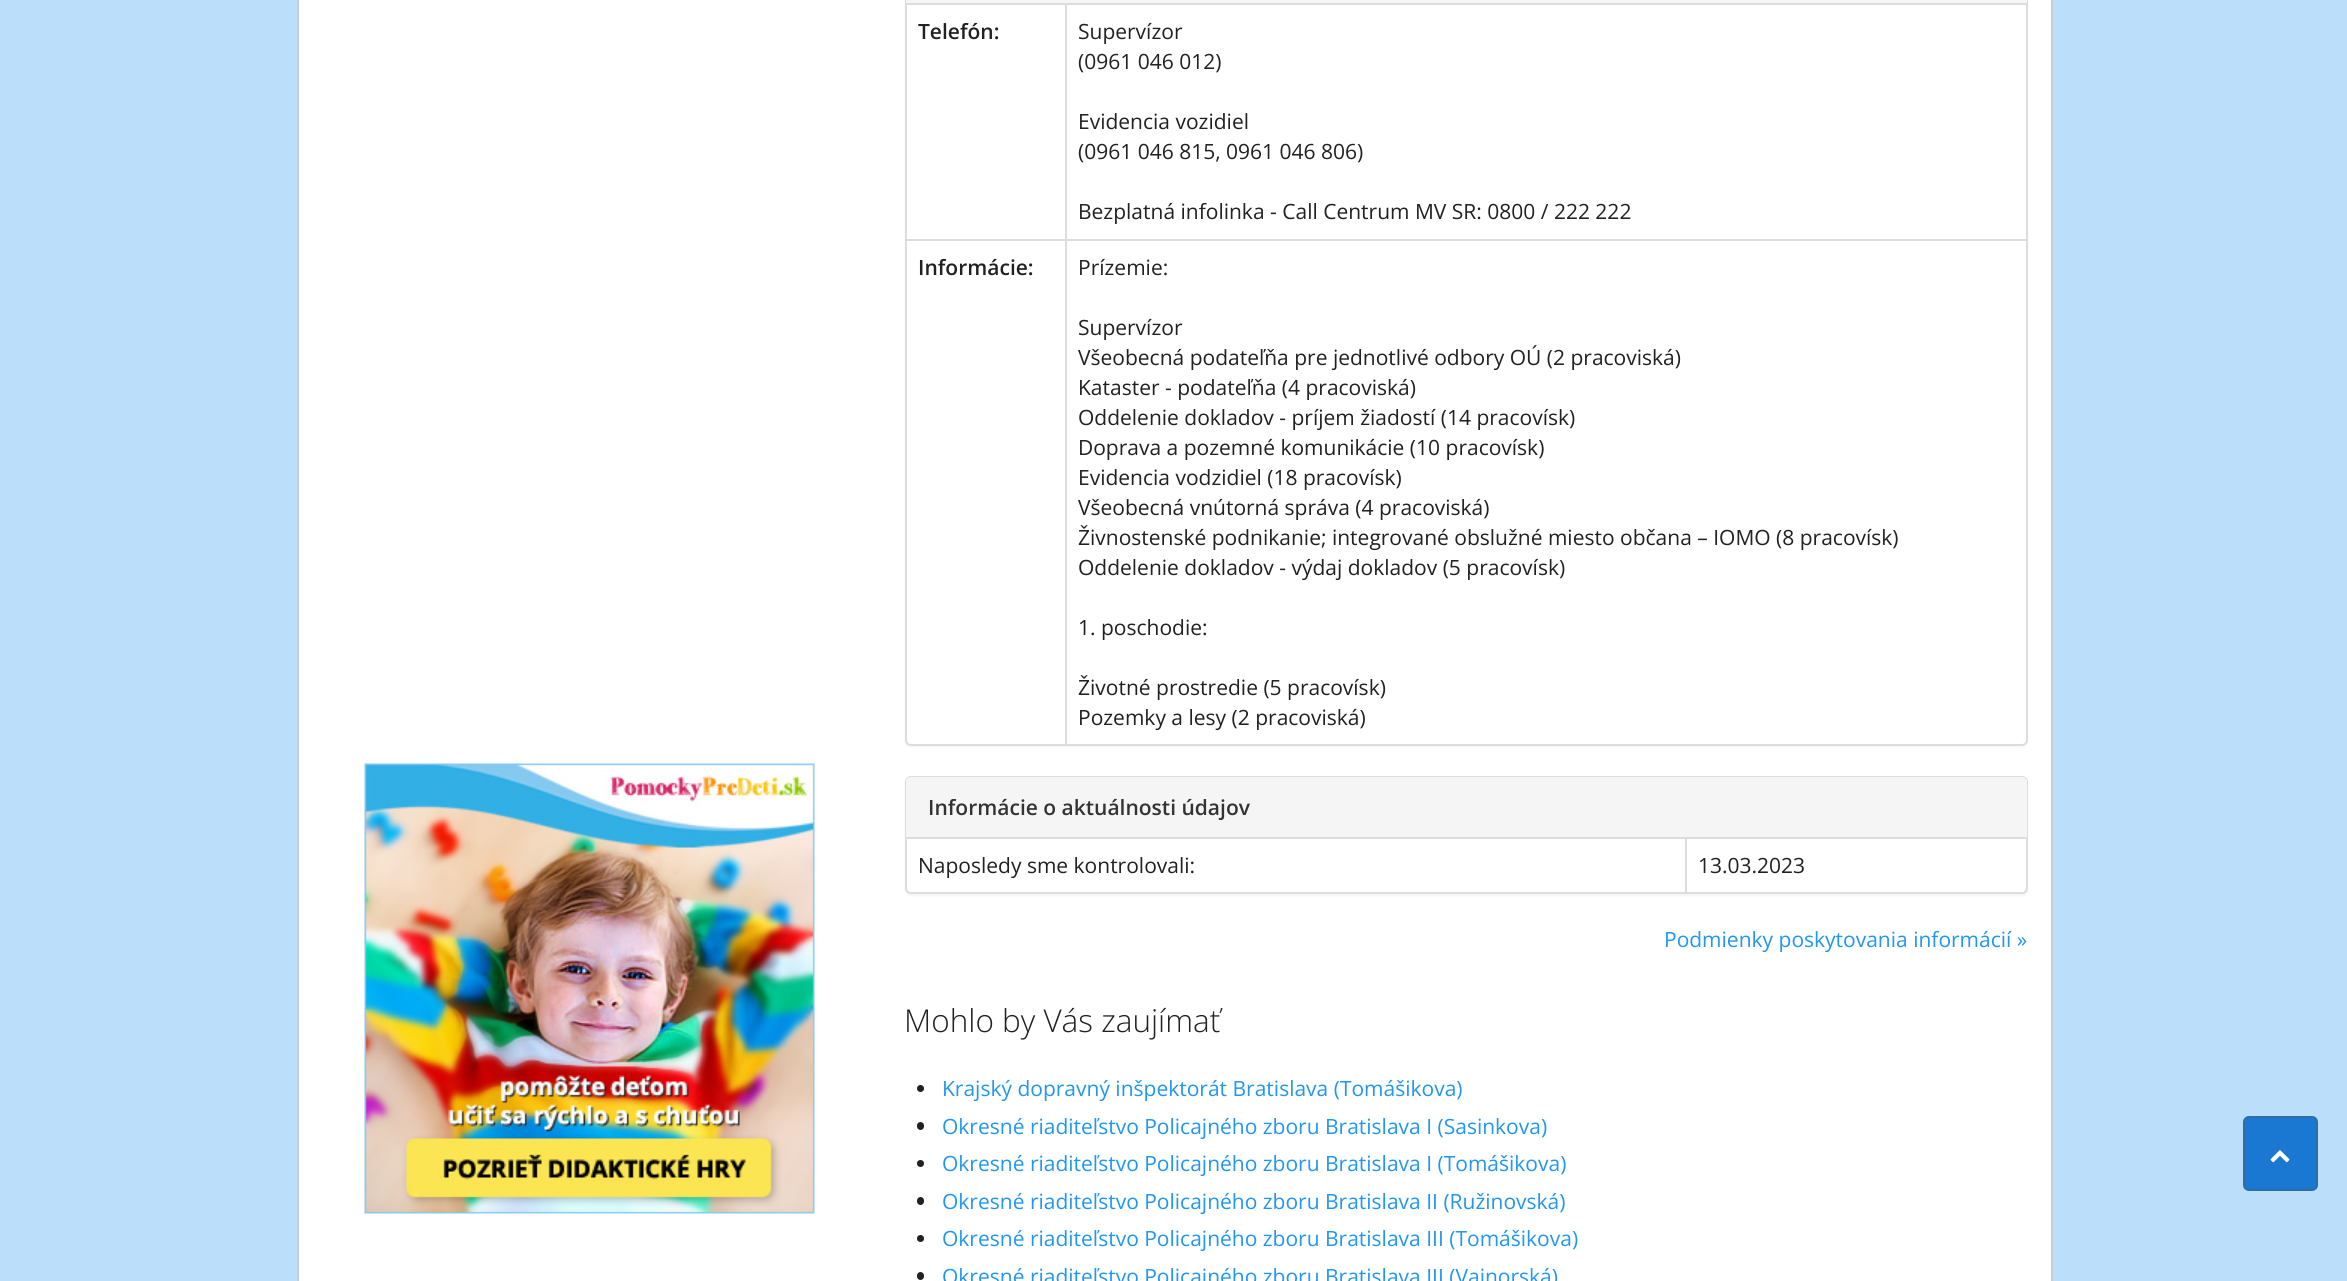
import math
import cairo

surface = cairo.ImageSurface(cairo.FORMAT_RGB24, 2347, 1281)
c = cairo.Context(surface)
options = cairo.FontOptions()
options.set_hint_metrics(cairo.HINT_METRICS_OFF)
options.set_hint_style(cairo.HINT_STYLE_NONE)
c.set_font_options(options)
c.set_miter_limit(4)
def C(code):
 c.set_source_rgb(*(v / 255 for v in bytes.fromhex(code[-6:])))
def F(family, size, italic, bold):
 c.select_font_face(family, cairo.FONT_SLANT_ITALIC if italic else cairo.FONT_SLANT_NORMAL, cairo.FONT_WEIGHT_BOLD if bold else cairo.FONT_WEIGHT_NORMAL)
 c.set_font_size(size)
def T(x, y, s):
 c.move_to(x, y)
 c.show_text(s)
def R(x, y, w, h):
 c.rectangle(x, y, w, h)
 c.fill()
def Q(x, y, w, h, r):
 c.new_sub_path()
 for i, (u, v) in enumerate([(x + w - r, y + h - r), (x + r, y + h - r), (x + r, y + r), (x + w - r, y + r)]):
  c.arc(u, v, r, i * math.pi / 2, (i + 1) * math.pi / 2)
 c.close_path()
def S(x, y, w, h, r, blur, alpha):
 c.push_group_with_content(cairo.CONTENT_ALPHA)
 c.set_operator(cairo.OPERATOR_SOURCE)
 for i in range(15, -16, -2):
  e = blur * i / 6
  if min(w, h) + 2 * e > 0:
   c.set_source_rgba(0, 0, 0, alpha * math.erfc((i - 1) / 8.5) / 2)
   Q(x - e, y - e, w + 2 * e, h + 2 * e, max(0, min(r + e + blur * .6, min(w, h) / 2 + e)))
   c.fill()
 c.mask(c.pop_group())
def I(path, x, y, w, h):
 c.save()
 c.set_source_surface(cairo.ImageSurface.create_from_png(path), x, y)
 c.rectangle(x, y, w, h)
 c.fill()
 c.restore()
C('bbdefb')
c.paint()
C('ffffff')
R(299,0,1752,1281)
C('cccccc')
R(2051,0,2,1281)
R(297,0,2,1281)
I('1.png',364,763,451,451)
C('000000')
S(905,-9,1123,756,6,1,.05)
C('ffffff')
Q(906,-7,1121,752,5)
c.fill_preserve()
C('dddddd')
c.stroke()
C('f5f5f5')
R(906,0,1121,3)
C('dddddd')
R(906,3,1121,2)
F('Open Sans SemiBold',21,0,0)
C('212121')
T(918,39,'Telefón:')
C('dddddd')
R(1065,239,962,2)
R(1065,239,2,507)
R(905,239,162,2)
R(1065,5,2,235)
F('Open Sans',21,0,0)
C('212121')
T(1078,39,'Supervízor')
T(1078,69,'(0961 046 012)')
T(1078,129,'Evidencia vozidiel')
T(1078,159,'(0961 046 815, 0961 046 806)')
T(1078,219,'Bezplatná infolinka - Call Centrum MV SR: 0800 / 222 222')
F('Open Sans SemiBold',21,0,0)
T(918,275,'Informácie:')
F('Open Sans',21,0,0)
T(1078,275,'Prízemie:')
T(1078,335,'Supervízor')
T(1078,365,'Všeobecná podateľňa pre jednotlivé odbory OÚ (2 pracoviská)')
T(1078,395,'Kataster - podateľňa (4 pracoviská)')
T(1078,425,'Oddelenie dokladov - príjem žiadostí (14 pracovísk)')
T(1078,455,'Doprava a pozemné komunikácie (10 pracovísk)')
T(1078,485,'Evidencia vodzidiel (18 pracovísk)')
T(1078,515,'Všeobecná vnútorná správa (4 pracoviská)')
T(1078,545,'Živnostenské podnikanie; integrované obslužné miesto občana – IOMO (8 pracovísk)')
T(1078,575,'Oddelenie dokladov - výdaj dokladov (5 pracovísk)')
T(1078,635,'1. poschodie:')
T(1078,695,'Životné prostredie (5 pracovísk)')
T(1078,725,'Pozemky a lesy (2 pracoviská)')
C('000000')
S(905,777,1123,119,6,1,.05)
C('ffffff')
Q(906,777,1121,116,5)
c.fill_preserve()
C('dddddd')
c.stroke()
C('f5f5f5')
c.new_path()
c.move_to(911,777)
c.line_to(2022,777)
c.curve_to(2025,777,2027,779,2027,782)
c.line_to(2027,839)
c.line_to(906,839)
c.line_to(906,782)
c.curve_to(906,779,908,777,911,777)
c.close_path()
c.fill()
C('dddddd')
R(906,837,1121,2)
F('Open Sans SemiBold',21,0,0)
C('333333')
T(928,815,'Informácie o aktuálnosti údajov')
F('Open Sans',21,0,0)
C('212121')
T(918,873,'Naposledy sme kontrolovali:')
C('dddddd')
R(1685,839,2,55)
C('212121')
T(1698,873,'13.03.2023')
C('2196f3')
T(1664,947,'Podmienky poskytovania informácií »')
F('Open Sans Light',31.5,0,0)
C('212121')
T(904,1032,'Mohlo by Vás zaujímať')
c.new_path()
c.arc(920.5,1088.5,3.5,0,2 * math.pi)
c.fill()
F('Open Sans',21,0,0)
C('2196f3')
T(942,1096,'Krajský dopravný inšpektorát Bratislava (Tomášikova)')
C('212121')
Q(917,1122,7,8,3.5)
c.fill()
C('2196f3')
T(942,1134,'Okresné riaditeľstvo Policajného zboru Bratislava I (Sasinkova)')
C('212121')
c.new_path()
c.arc(920.5,1163.5,3.5,0,2 * math.pi)
c.fill()
C('2196f3')
T(942,1171,'Okresné riaditeľstvo Policajného zboru Bratislava I (Tomášikova)')
C('212121')
Q(917,1197,7,8,3.5)
c.fill()
C('2196f3')
T(942,1209,'Okresné riaditeľstvo Policajného zboru Bratislava II (Ružinovská)')
C('212121')
c.new_path()
c.arc(920.5,1238.5,3.5,0,2 * math.pi)
c.fill()
C('2196f3')
T(942,1246,'Okresné riaditeľstvo Policajného zboru Bratislava III (Tomášikova)')
C('212121')
Q(917,1272,7,8,3.5)
c.fill()
C('2196f3')
T(942,1284,'Okresné riaditeľstvo Policajného zboru Bratislava III (Vajnorská)')
C('1a77d2')
Q(2244,1117,73,73,5)
c.fill_preserve()
C('2f6ea5')
c.stroke()
I('2.png',2270,1150,20,13)
surface.write_to_png('o.png')
